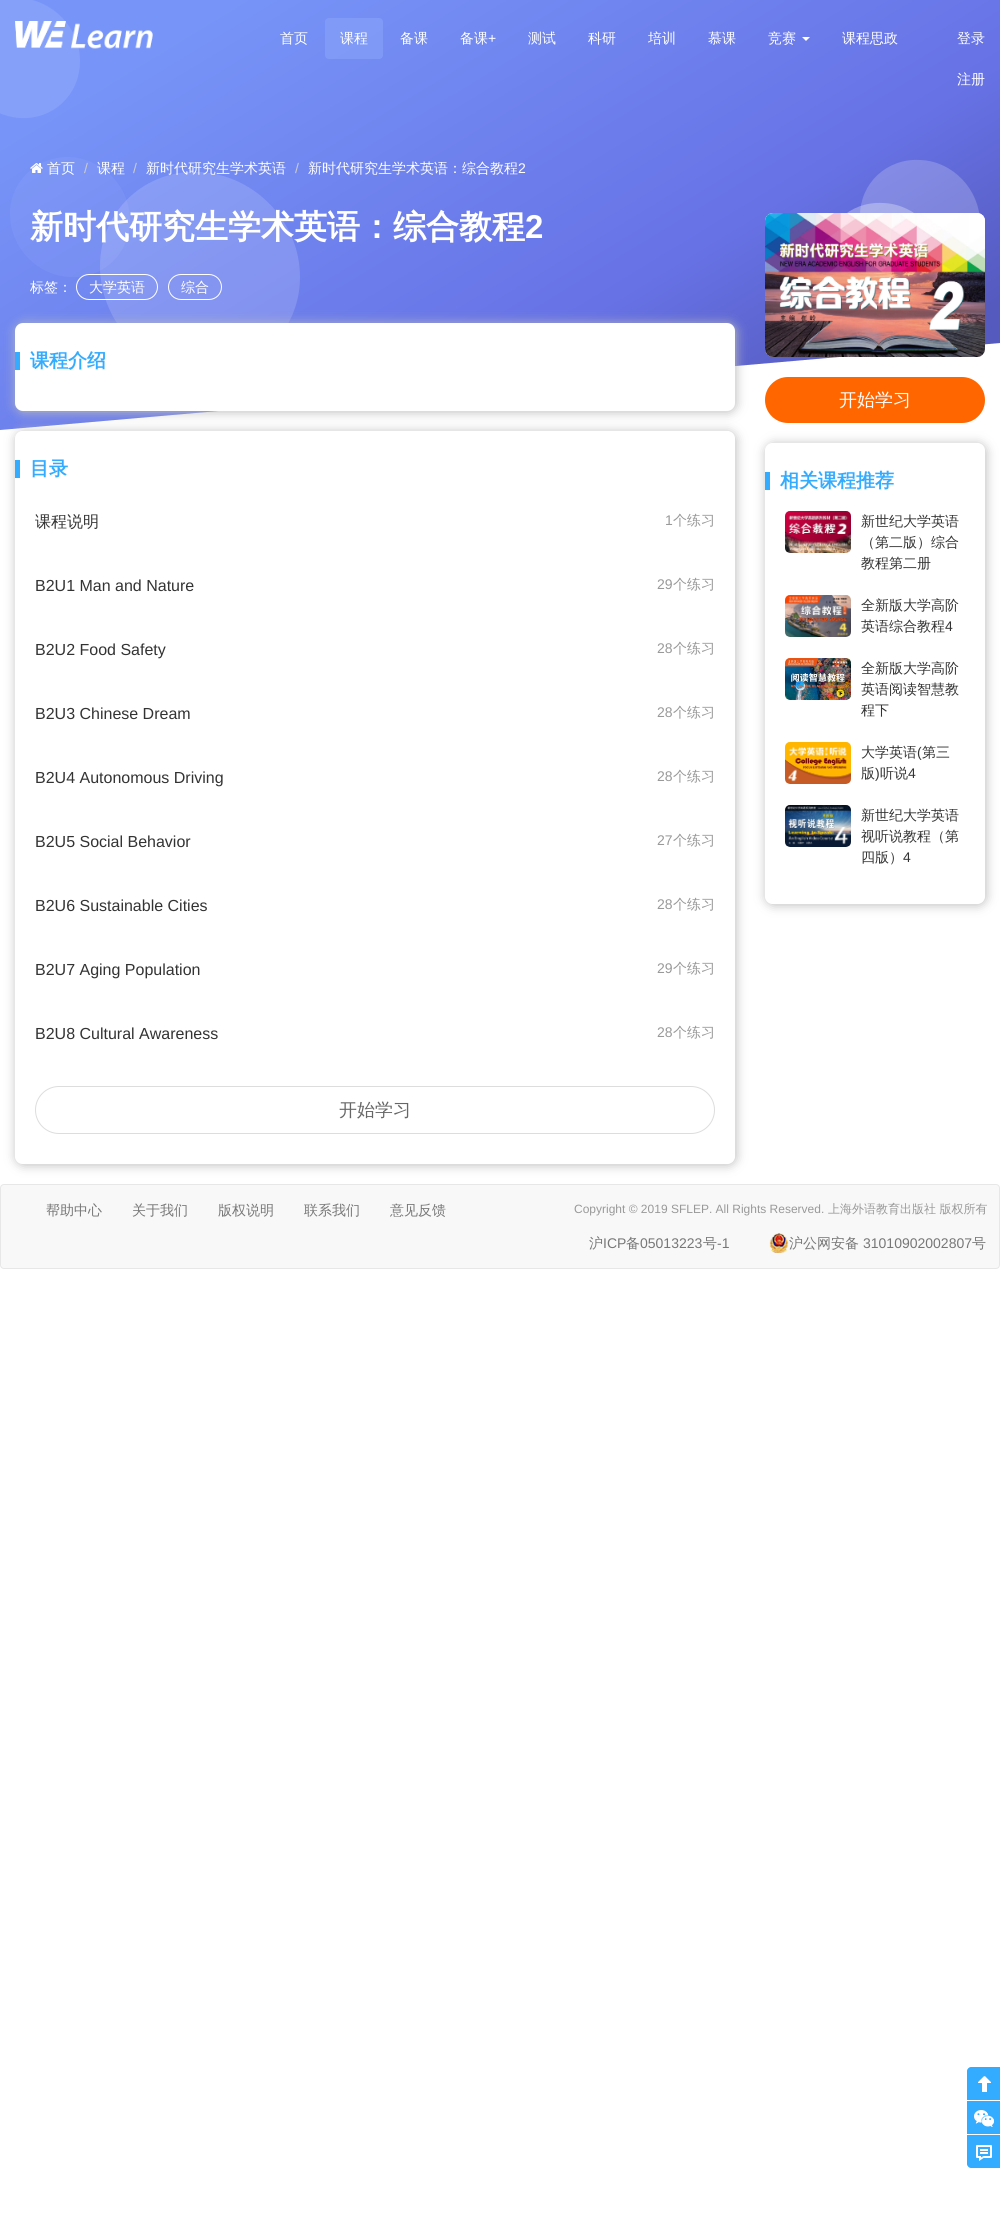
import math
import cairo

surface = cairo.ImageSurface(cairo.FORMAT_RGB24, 1000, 2228)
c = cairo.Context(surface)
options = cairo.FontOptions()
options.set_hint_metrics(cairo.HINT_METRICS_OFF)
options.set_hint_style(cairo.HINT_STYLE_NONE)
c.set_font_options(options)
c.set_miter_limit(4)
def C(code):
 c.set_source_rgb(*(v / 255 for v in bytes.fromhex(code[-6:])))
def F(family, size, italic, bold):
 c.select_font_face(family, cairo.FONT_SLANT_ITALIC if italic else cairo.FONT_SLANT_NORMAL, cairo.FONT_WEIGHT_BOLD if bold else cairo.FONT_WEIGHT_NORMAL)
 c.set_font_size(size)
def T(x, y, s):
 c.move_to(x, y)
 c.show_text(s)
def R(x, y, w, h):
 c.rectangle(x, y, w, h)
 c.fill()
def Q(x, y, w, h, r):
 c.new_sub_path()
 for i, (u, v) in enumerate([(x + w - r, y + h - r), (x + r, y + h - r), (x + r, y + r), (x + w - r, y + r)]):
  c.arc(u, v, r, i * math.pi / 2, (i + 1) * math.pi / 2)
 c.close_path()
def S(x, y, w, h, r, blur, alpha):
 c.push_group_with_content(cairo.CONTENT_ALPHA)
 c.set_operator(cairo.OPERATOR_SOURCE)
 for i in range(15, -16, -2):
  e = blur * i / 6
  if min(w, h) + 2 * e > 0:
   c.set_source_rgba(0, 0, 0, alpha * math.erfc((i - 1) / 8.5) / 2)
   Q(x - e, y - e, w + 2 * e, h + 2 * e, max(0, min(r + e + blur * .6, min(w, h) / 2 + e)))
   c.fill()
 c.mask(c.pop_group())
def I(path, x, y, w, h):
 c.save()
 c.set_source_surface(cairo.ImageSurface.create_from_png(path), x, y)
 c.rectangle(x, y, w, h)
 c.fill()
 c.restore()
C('ffffff')
c.paint()
gradient = cairo.LinearGradient(282,-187,718,530)
gradient.add_color_stop_rgba(.15,0.467,0.584,0.973,1)
gradient.add_color_stop_rgba(.7,0.404,0.447,0.898,1)
gradient.add_color_stop_rgba(.94,0.333,0.353,0.749,1)
c.set_source(gradient)
c.new_path()
c.move_to(0,0)
c.line_to(1000,-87)
c.line_to(1000,343)
c.line_to(0,430)
c.close_path()
c.fill()
C('85a0f9')
c.new_path()
c.move_to(20,-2)
c.curve_to(53,0,80,28,80,61)
c.curve_to(80,95,53,120,20,118)
c.curve_to(-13,116,-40,88,-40,55)
c.curve_to(-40,22,-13,-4,20,-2)
c.close_path()
c.fill()
c.set_source_rgba(1,1,1,0.05)
c.new_path()
c.move_to(70,157)
c.curve_to(103,159,130,187,130,220)
c.curve_to(130,254,103,279,70,277)
c.curve_to(37,276,10,247,10,214)
c.curve_to(10,181,37,156,70,157)
c.close_path()
c.fill()
c.set_source_rgba(1,1,1,0.15)
c.new_path()
c.move_to(200,172)
c.curve_to(255,175,300,222,300,277)
c.curve_to(300,332,255,375,200,372)
c.curve_to(145,369,100,322,100,266)
c.curve_to(100,211,145,169,200,172)
c.close_path()
c.fill()
c.set_source_rgba(1,1,1,0.3)
c.new_path()
c.move_to(883,203)
c.curve_to(916,204,943,233,943,266)
c.curve_to(943,299,916,324,883,323)
c.curve_to(850,321,823,293,823,260)
c.curve_to(823,226,850,201,883,203)
c.close_path()
c.fill()
c.set_source_rgba(1,1,1,0.2)
c.new_path()
c.move_to(920,160)
c.curve_to(953,161,980,190,980,223)
c.curve_to(980,256,953,281,920,280)
c.curve_to(887,278,860,249,860,216)
c.curve_to(860,183,887,158,920,160)
c.close_path()
c.fill()
I('1.png',15,21,138,28)
F('WenQuanYi Zen Hei Medium',14,0,0)
C('ffffff')
T(280,43,'首页')
c.set_source_rgba(0.522,0.627,0.976,0.7)
Q(325,18,58,41,4)
c.fill()
C('ffffff')
T(340,43,'课程')
T(400,43,'备课')
T(460,43,'备课')
F('Liberation Sans',14,0,0)
T(488,43,'+')
F('WenQuanYi Zen Hei Medium',14,0,0)
T(528,43,'测试')
T(588,43,'科研')
T(648,43,'培训')
T(708,43,'慕课')
T(768,43,'竞赛')
c.new_path()
c.move_to(802,37)
c.line_to(810,37)
c.line_to(806,41)
c.close_path()
c.fill()
T(842,43,'课程思政')
T(957,43,'登录')
T(957,84,'注册')
I('2.png',30,163,13,10)
T(47,173,'首页')
F('Liberation Sans',14,0,0)
C('cccccc')
T(84,173,'/')
F('WenQuanYi Zen Hei Medium',14,0,0)
C('ffffff')
T(97,173,'课程')
F('Liberation Sans',14,0,0)
C('cccccc')
T(133,173,'/')
F('WenQuanYi Zen Hei Medium',14,0,0)
C('ffffff')
T(146,173,'新时代研究生学术英语')
F('Liberation Sans',14,0,0)
C('cccccc')
T(295,173,'/')
F('WenQuanYi Zen Hei Medium',14,0,0)
C('ffffff')
T(308,173,'新时代研究生学术英语：综合教程')
F('Liberation Sans',14,0,0)
T(518,173,'2')
F('WenQuanYi Zen Hei',33,0,1)
T(30,238,'新时代研究生学术英语：综合教程')
F('Liberation Sans',33,0,1)
T(525,238,'2')
F('WenQuanYi Zen Hei Medium',14,0,0)
T(30,292,'标签：')
Q(76.5,274.5,81,25,12.5)
c.set_line_width(1)
c.stroke()
T(89,292,'大学英语')
Q(168.5,274.5,53,25,12.5)
c.stroke()
T(181,292,'综合')
C('bbbbbb')
S(16,324,720,88,8,5.5,1)
C('ffffff')
Q(15,323,720,88,8)
c.fill()
C('33abff')
R(15,352,5,18)
F('WenQuanYi Zen Hei',19,0,1)
T(30,367,'课程介绍')
c.save()
c.set_fill_rule(cairo.FILL_RULE_EVEN_ODD)
c.new_path()
c.move_to(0,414)
c.line_to(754,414)
c.line_to(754,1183)
c.line_to(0,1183)
c.close_path()
c.move_to(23,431)
c.line_to(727,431)
c.curve_to(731.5,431,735,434.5,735,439)
c.line_to(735,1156)
c.curve_to(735,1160.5,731.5,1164,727,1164)
c.line_to(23,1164)
c.curve_to(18.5,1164,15,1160.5,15,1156)
c.line_to(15,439)
c.curve_to(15,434.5,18.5,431,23,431)
c.close_path()
c.clip()
C('bbbbbb')
S(16,432,720,733,8,5.5,1)
c.restore()
R(15,460,5,18)
T(30,475,'目录')
F('WenQuanYi Zen Hei Medium',16,0,0)
C('333333')
T(35,527,'课程说明')
F('Liberation Sans',14,0,0)
C('999999')
T(665,525,'1')
F('WenQuanYi Zen Hei Medium',14,0,0)
T(673,525,'个练习')
F('Liberation Sans',16,0,0)
C('333333')
T(35,591,'B2U1 Man and Nature')
F('Liberation Sans',14,0,0)
C('999999')
T(657,589,'29')
F('WenQuanYi Zen Hei Medium',14,0,0)
T(673,589,'个练习')
F('Liberation Sans',16,0,0)
C('333333')
T(35,655,'B2U2 Food Safety')
F('Liberation Sans',14,0,0)
C('999999')
T(657,653,'28')
F('WenQuanYi Zen Hei Medium',14,0,0)
T(673,653,'个练习')
F('Liberation Sans',16,0,0)
C('333333')
T(35,719,'B2U3 Chinese Dream')
F('Liberation Sans',14,0,0)
C('999999')
T(657,717,'28')
F('WenQuanYi Zen Hei Medium',14,0,0)
T(673,717,'个练习')
F('Liberation Sans',16,0,0)
C('333333')
T(35,783,'B2U4 Autonomous Driving')
F('Liberation Sans',14,0,0)
C('999999')
T(657,781,'28')
F('WenQuanYi Zen Hei Medium',14,0,0)
T(673,781,'个练习')
F('Liberation Sans',16,0,0)
C('333333')
T(35,847,'B2U5 Social Behavior')
F('Liberation Sans',14,0,0)
C('999999')
T(657,845,'27')
F('WenQuanYi Zen Hei Medium',14,0,0)
T(673,845,'个练习')
F('Liberation Sans',16,0,0)
C('333333')
T(35,911,'B2U6 Sustainable Cities')
F('Liberation Sans',14,0,0)
C('999999')
T(657,909,'28')
F('WenQuanYi Zen Hei Medium',14,0,0)
T(673,909,'个练习')
F('Liberation Sans',16,0,0)
C('333333')
T(35,975,'B2U7 Aging Population')
F('Liberation Sans',14,0,0)
C('999999')
T(657,973,'29')
F('WenQuanYi Zen Hei Medium',14,0,0)
T(673,973,'个练习')
F('Liberation Sans',16,0,0)
C('333333')
T(35,1039,'B2U8 Cultural Awareness')
F('Liberation Sans',14,0,0)
C('999999')
T(657,1037,'28')
F('WenQuanYi Zen Hei Medium',14,0,0)
T(673,1037,'个练习')
Q(35.5,1086.5,679,47,23.5)
C('dddddd')
c.stroke()
F('WenQuanYi Zen Hei Medium',18,0,0)
C('666666')
T(339,1116,'开始学习')
C('ffffff')
Q(765,213,220,144,8)
c.fill()
I('3.png',765,213,220,144)
C('ff6600')
Q(765,377,220,46,23)
c.fill()
C('ffffff')
T(839,406,'开始学习')
c.save()
c.set_fill_rule(cairo.FILL_RULE_EVEN_ODD)
c.new_path()
c.move_to(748,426)
c.line_to(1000,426)
c.line_to(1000,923)
c.line_to(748,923)
c.close_path()
c.move_to(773,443)
c.line_to(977,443)
c.curve_to(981.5,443,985,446.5,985,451)
c.line_to(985,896)
c.curve_to(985,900.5,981.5,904,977,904)
c.line_to(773,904)
c.curve_to(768.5,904,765,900.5,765,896)
c.line_to(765,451)
c.curve_to(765,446.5,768.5,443,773,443)
c.close_path()
c.clip()
C('bbbbbb')
S(766,444,220,461,8,5.5,1)
c.restore()
C('33abff')
R(765,472,5,18)
F('WenQuanYi Zen Hei',19,0,1)
T(780,487,'相关课程推荐')
I('4.png',785,511,66,42)
F('WenQuanYi Zen Hei Medium',14,0,0)
C('333333')
T(861,526,'新世纪大学英语')
T(861,547,'（第二版）综合')
T(861,568,'教程第二册')
I('5.png',785,595,66,42)
T(861,610,'全新版大学高阶')
T(861,631,'英语综合教程')
F('Liberation Sans',14,0,0)
T(945,631,'4')
I('6.png',785,658,66,42)
F('WenQuanYi Zen Hei Medium',14,0,0)
T(861,673,'全新版大学高阶')
T(861,694,'英语阅读智慧教')
T(861,715,'程下')
I('7.png',785,742,66,42)
T(861,757,'大学英语')
F('Liberation Sans',14,0,0)
T(917,757,'(')
F('WenQuanYi Zen Hei Medium',14,0,0)
T(922,757,'第三')
T(861,778,'版')
F('Liberation Sans',14,0,0)
T(875,778,')')
F('WenQuanYi Zen Hei Medium',14,0,0)
T(880,778,'听说')
F('Liberation Sans',14,0,0)
T(908,778,'4')
I('8.png',785,805,66,42)
F('WenQuanYi Zen Hei Medium',14,0,0)
T(861,820,'新世纪大学英语')
T(861,841,'视听说教程（第')
T(861,862,'四版）')
F('Liberation Sans',14,0,0)
T(903,862,'4')
C('f8f8f8')
Q(.5,1184.5,999,84,3.5)
c.fill_preserve()
C('e7e7e7')
c.stroke()
F('WenQuanYi Zen Hei Medium',14,0,0)
C('777777')
T(46,1215,'帮助中心')
T(132,1215,'关于我们')
T(218,1215,'版权说明')
T(304,1215,'联系我们')
T(390,1215,'意见反馈')
F('Liberation Sans',12,0,0)
C('999999')
T(574,1213,'Copyright © 2019 SFLEP. All Rights Reserved.')
F('WenQuanYi Zen Hei Medium',12,0,0)
T(828,1213,'上海外语教育出版社 版权所有')
F('WenQuanYi Zen Hei Medium',14,0,0)
C('777777')
T(589,1248,'沪')
F('Liberation Sans',14,0,0)
T(603,1248,'ICP')
F('WenQuanYi Zen Hei Medium',14,0,0)
T(626,1248,'备')
F('Liberation Sans',14,0,0)
T(640,1248,'05013223')
F('WenQuanYi Zen Hei Medium',14,0,0)
T(703,1248,'号')
F('Liberation Sans',14,0,0)
T(717,1248,'-1')
I('9.png',769,1233,20,20)
F('WenQuanYi Zen Hei Medium',14,0,0)
T(789,1248,'沪公网安备')
F('Liberation Sans',14,0,0)
T(863,1248,'31010902002807')
F('WenQuanYi Zen Hei Medium',14,0,0)
T(972,1248,'号')
C('33abff')
c.new_path()
c.move_to(971,2067)
c.line_to(1000,2067)
c.line_to(1000,2100)
c.line_to(967,2100)
c.line_to(967,2071)
c.curve_to(967,2069,969,2067,971,2067)
c.close_path()
c.fill()
I('10.png',978,2076,13,16)
R(967,2101,33,33)
I('11.png',974,2110,20,17)
c.new_path()
c.move_to(967,2135)
c.line_to(1000,2135)
c.line_to(1000,2168)
c.line_to(971,2168)
c.curve_to(969,2168,967,2166,967,2164)
c.close_path()
c.fill()
I('12.png',976,2145,16,16)
surface.write_to_png('o.png')
